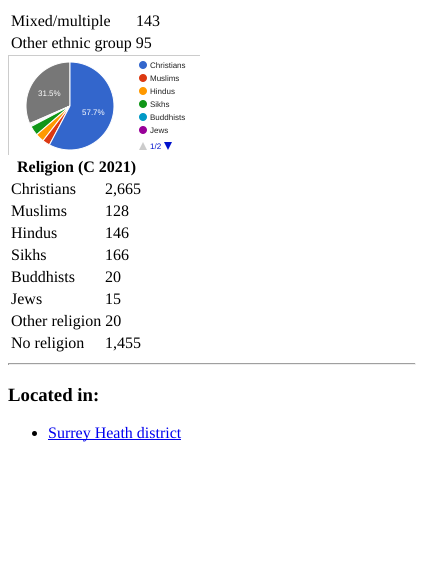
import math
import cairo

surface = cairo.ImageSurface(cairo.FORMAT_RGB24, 424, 588)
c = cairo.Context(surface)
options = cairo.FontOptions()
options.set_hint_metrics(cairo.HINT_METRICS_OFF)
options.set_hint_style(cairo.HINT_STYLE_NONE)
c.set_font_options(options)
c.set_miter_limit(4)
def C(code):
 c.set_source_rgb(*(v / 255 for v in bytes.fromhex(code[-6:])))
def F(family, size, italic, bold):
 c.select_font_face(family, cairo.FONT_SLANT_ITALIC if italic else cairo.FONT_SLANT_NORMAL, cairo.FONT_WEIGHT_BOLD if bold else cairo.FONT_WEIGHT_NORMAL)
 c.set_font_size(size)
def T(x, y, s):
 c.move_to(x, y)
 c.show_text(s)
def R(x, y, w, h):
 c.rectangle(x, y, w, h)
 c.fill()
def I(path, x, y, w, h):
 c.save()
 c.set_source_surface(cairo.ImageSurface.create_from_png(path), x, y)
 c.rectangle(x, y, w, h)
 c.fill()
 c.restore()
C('ffffff')
c.paint()
F('Liberation Serif',16,0,0)
C('000000')
T(11,26,'Mixed/multiple')
T(136,26,'143')
T(11,48,'Other ethnic group 95')
I('1.png',8,55,192,100)
F('Liberation Sans',8,0,0)
C('222222')
T(150,68,'Christians')
T(150,81,'Muslims')
C('ffffff')
T(38,96,'31.5%')
C('222222')
T(150,94,'Hindus')
T(150,107,'Sikhs')
C('ffffff')
T(82,115,'57.7%')
C('222222')
T(150,120,'Buddhists')
T(150,133,'Jews')
C('0011cc')
T(150,149,'1/2')
F('Liberation Serif',16,0,1)
C('000000')
T(17,172,'Religion (C 2021)')
F('Liberation Serif',16,0,0)
T(11,194,'Christians')
T(105,194,'2,665')
T(11,216,'Muslims')
T(105,216,'128')
T(11,238,'Hindus')
T(105,238,'146')
T(11,260,'Sikhs')
T(105,260,'166')
T(11,282,'Buddhists')
T(105,282,'20')
T(11,304,'Jews')
T(105,304,'15')
T(11,326,'Other religion 20')
T(11,348,'No religion')
T(105,348,'1,455')
C('9f9f9f')
R(8,363,408,1)
C('eeeeee')
R(415,363,1,2)
R(8,364,408,1)
C('9f9f9f')
R(8,363,1,2)
F('Liberation Serif',18.75,0,1)
C('000000')
T(8,401,'Located in:')
c.new_path()
c.arc(34.5,433.5,2.5,0,2 * math.pi)
c.fill()
C('0000ee')
R(48,439,133,1)
F('Liberation Serif',16,0,0)
T(48,438,'Surrey Heath district')
surface.write_to_png('o.png')
